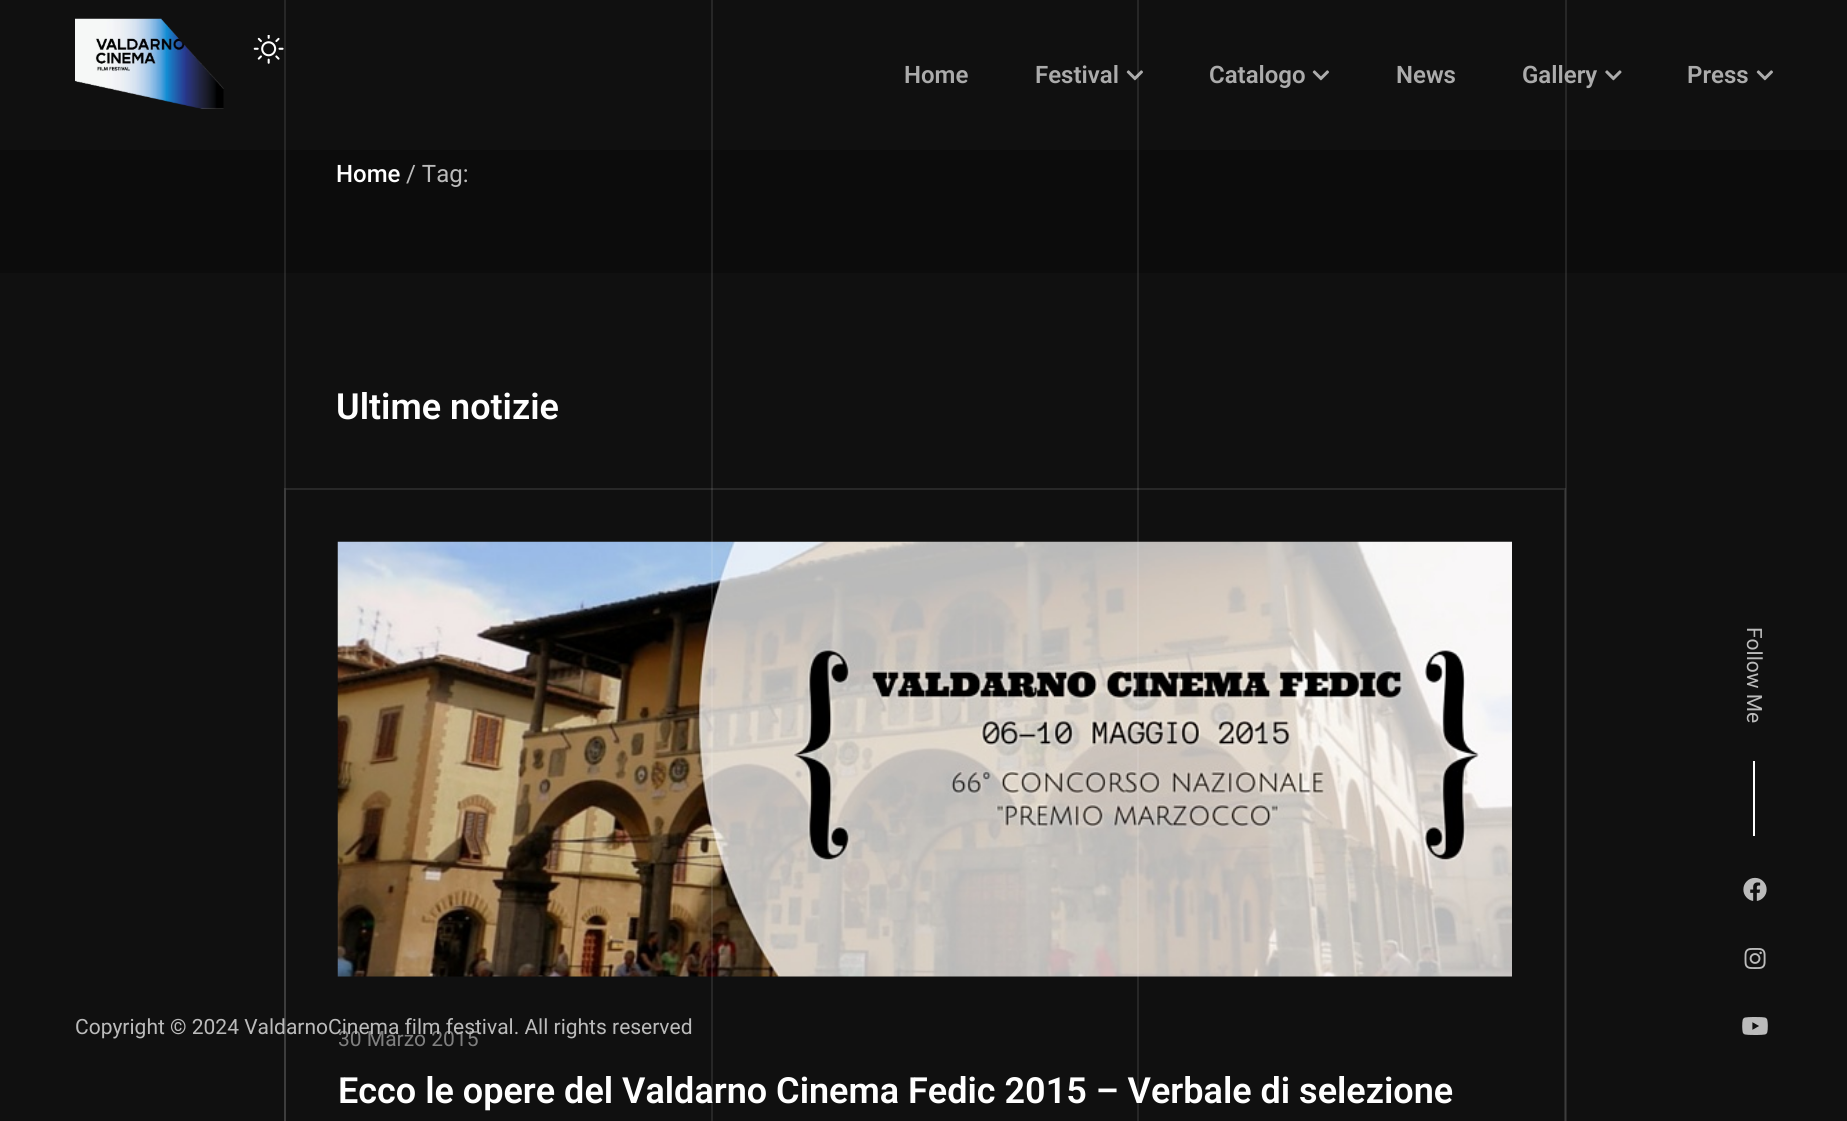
import math
import cairo

surface = cairo.ImageSurface(cairo.FORMAT_RGB24, 1847, 1121)
c = cairo.Context(surface)
options = cairo.FontOptions()
options.set_hint_metrics(cairo.HINT_METRICS_OFF)
options.set_hint_style(cairo.HINT_STYLE_NONE)
c.set_font_options(options)
c.set_miter_limit(4)
def C(code):
 c.set_source_rgb(*(v / 255 for v in bytes.fromhex(code[-6:])))
def F(family, size, italic, bold):
 c.select_font_face(family, cairo.FONT_SLANT_ITALIC if italic else cairo.FONT_SLANT_NORMAL, cairo.FONT_WEIGHT_BOLD if bold else cairo.FONT_WEIGHT_NORMAL)
 c.set_font_size(size)
def T(x, y, s):
 c.move_to(x, y)
 c.show_text(s)
def R(x, y, w, h):
 c.rectangle(x, y, w, h)
 c.fill()
def I(path, x, y, w, h):
 c.save()
 c.set_source_surface(cairo.ImageSurface.create_from_png(path), x, y)
 c.rectangle(x, y, w, h)
 c.fill()
 c.restore()
C('101010')
c.paint()
C('0c0c0c')
R(0,150,1847,123)
c.rectangle(285,489,1280,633)
C('282828')
c.stroke()
c.set_source_rgba(1,1,1,0.1)
R(284,0,2,1121)
I('5.png',337,541,1175,436)
R(711,0,2,1121)
I('3.png',1126,70,17,11)
R(1137,0,2,1121)
R(1565,0,2,1121)
I('1.png',75,18,149,91)
I('2.png',253,35,31,29)
F('Roboto SemiBold',24,0,0)
C('ababab')
T(904,83,'Home')
T(1035,83,'Festival')
T(1209,83,'Catalogo')
I('3.png',1312,70,17,11)
T(1396,83,'News')
T(1522,83,'Gallery')
I('4.png',1605,70,17,11)
T(1687,83,'Press')
I('3.png',1756,70,17,11)
F('Roboto Medium',24,0,0)
C('ffffff')
T(336,182,'Home')
F('Roboto',24,0,0)
C('bbbbbb')
T(406,182,'/ Tag:')
F('Roboto SemiBold',36,0,0)
C('ffffff')
T(336,419,'Ultime notizie')
F('Roboto',21,0,0)
C('7f7f7f')
T(338,1046,'30 Marzo 2015')
F('Roboto SemiBold',36,0,0)
C('ffffff')
T(338,1103,'Ecco le opere del Valdarno Cinema Fedic 2015 – Verbale di selezione')
F('Roboto',21,0,0)
C('bbbbbb')
c.save()
c.translate(1747,627)
c.rotate(90 * math.pi / 180)
T(0,0,'Follow Me')
c.restore()
C('ffffff')
R(1753,761,2,75)
I('6.png',1743,877,24,24)
I('7.png',1744,948,22,21)
I('8.png',1742,1017,26,18)
C('bbbbbb')
T(75,1034,'Copyright © 2024 ValdarnoCinema film festival. All rights reserved')
surface.write_to_png('o.png')
